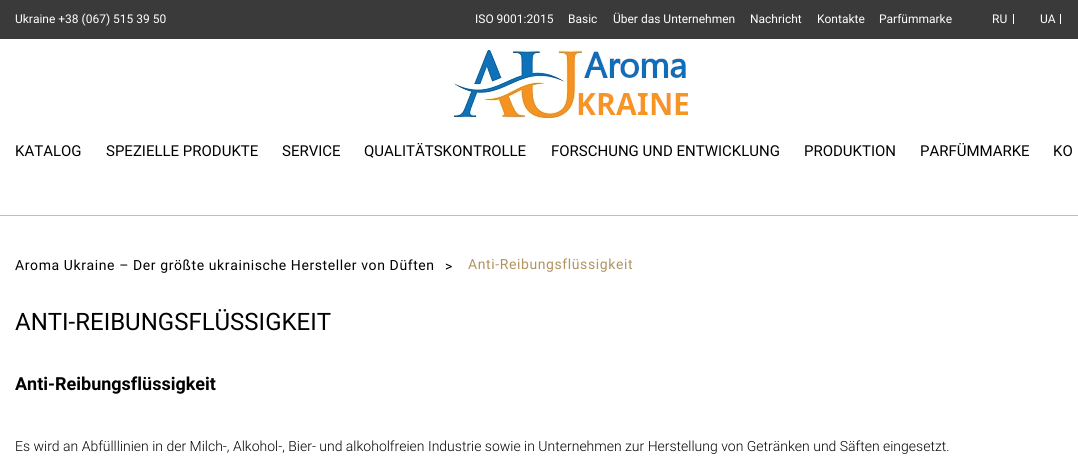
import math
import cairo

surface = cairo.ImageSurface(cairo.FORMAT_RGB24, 1078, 464)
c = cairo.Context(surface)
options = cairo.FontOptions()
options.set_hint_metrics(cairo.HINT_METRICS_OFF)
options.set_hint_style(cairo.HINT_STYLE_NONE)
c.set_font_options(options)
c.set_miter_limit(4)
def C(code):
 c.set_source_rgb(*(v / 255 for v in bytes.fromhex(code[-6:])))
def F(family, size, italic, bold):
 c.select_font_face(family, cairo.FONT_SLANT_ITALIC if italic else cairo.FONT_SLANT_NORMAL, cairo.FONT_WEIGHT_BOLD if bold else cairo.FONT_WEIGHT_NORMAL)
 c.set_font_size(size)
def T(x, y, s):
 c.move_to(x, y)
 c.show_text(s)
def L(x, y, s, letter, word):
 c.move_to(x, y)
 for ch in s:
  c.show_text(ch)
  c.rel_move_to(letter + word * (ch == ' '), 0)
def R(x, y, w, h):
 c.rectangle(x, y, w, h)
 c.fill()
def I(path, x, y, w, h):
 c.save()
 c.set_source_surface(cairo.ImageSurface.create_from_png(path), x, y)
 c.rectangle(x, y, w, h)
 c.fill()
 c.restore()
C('ffffff')
c.paint()
C('bfbfbf')
R(0,215,1078,1)
C('3a3a3a')
R(0,0,1078,39)
F('Roboto',12,0,0)
C('ffffff')
T(15,23,'Ukraine +38 (067) 515 39 50')
T(475,23,'ISO 9001:2015')
T(568,23,'Basic')
T(613,23,'Über das Unternehmen')
T(750,23,'Nachricht')
T(817,23,'Kontakte')
T(879,23,'Parfümmarke')
T(992,23,'RU')
R(1013,14,1,10)
T(1040,23,'UA')
R(1060,14,1,10)
I('1.png',454,50,234,68)
F('Roboto',15,0,0)
C('000000')
T(15,156,'KATALOG')
T(106,156,'SPEZIELLE PRODUKTE')
T(282,156,'SERVICE')
T(364,156,'QUALITÄTSKONTROLLE')
T(551,156,'FORSCHUNG UND ENTWICKLUNG')
T(804,156,'PRODUKTION')
T(920,156,'PARFÜMMARKE')
T(1053,156,'KO')
F('Roboto',14,0,0)
L(15,270,'Aroma Ukraine – Der größte ukrainische Hersteller von Düften',.6,0)
L(445,271,'>',.6,0)
C('b0935f')
L(468,269,'Anti-Reibungsflüssigkeit',.6,0)
F('Roboto',24,0,0)
C('000000')
T(15,330,'ANTI-REIBUNGSFLÜSSIGKEIT')
F('Roboto',18,0,1)
T(15,390,'Anti-Reibungsflüssigkeit')
F('Roboto Light',14,0,0)
T(15,451,'Es wird an Abfülllinien in der Milch-, Alkohol-, Bier- und alkoholfreien Industrie sowie in Unternehmen zur Herstellung von Getränken und Säften eingesetzt.')
surface.write_to_png('o.png')
